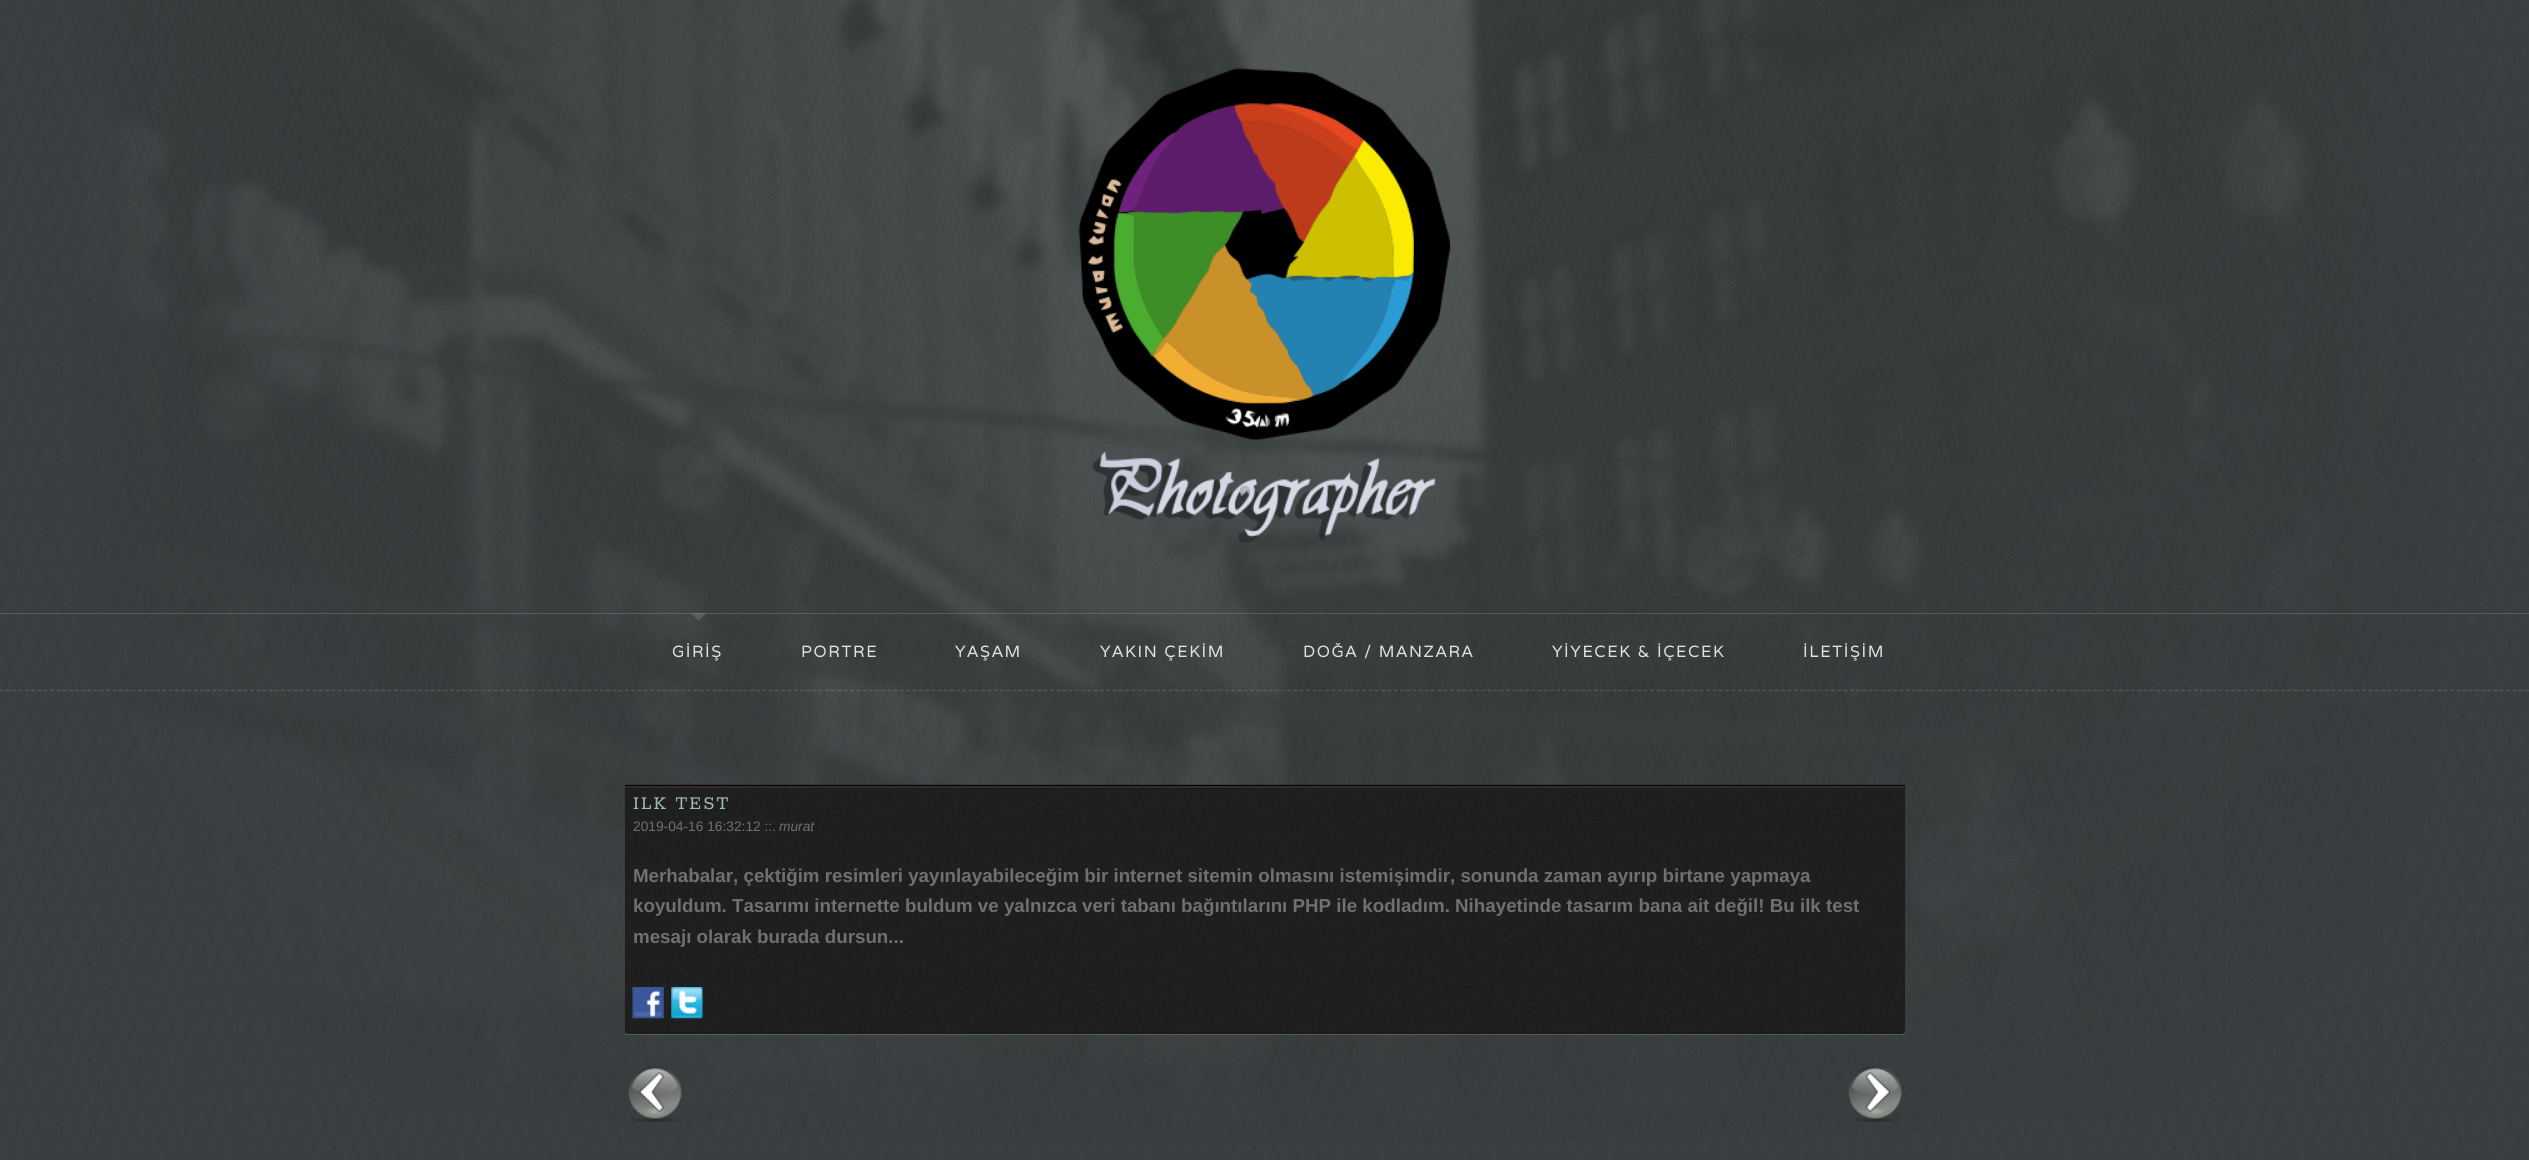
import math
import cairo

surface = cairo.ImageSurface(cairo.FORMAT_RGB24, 2529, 1160)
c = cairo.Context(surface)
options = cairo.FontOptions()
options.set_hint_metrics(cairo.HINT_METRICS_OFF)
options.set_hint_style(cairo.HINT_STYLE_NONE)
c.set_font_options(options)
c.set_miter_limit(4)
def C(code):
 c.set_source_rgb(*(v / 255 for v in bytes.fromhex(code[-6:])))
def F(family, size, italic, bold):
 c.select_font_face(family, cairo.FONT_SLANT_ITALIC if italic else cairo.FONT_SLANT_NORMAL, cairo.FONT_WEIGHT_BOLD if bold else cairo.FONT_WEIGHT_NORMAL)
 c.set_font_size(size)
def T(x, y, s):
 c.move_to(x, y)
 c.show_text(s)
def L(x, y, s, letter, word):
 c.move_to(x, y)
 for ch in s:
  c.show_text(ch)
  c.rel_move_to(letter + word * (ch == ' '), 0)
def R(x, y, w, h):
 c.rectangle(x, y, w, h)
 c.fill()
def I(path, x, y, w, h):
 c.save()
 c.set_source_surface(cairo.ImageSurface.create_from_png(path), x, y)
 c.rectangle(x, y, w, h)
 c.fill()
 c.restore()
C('3a4041')
c.paint()
I('1.png',0,0,2529,1160)
I('2.png',1078,68,373,475)
c.set_source_rgba(1,1,1,0.15)
R(0,613,2529,1)
c.new_path()
c.move_to(0,690.5)
c.line_to(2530,690.5)
c.set_line_width(1.2)
c.set_dash([3.75,2.5])
c.stroke()
I('3.png',691,613,15,8)
F('Varela',16.25,0,0)
C('e2e2e2')
L(672,657,'GİRİŞ',1.6,0)
L(801,657,'PORTRE',1.6,0)
L(955,657,'YAŞAM',1.6,0)
L(1100,657,'YAKIN ÇEKİM',1.6,0)
L(1303,657,'DOĞA / MANZARA',1.6,0)
L(1552,657,'YİYECEK & İÇECEK',1.6,0)
L(1803,657,'İLETİŞİM',1.6,0)
I('4.png',625,784,1280,249)
c.set_source_rgba(1,1,1,0.05)
R(626,787,1278,1)
C('000000')
c.new_path()
c.move_to(625,785)
c.line_to(626,786)
c.line_to(1904,786)
c.line_to(1905,785)
c.close_path()
c.fill()
C('1c1c1c')
c.new_path()
c.move_to(1905,785)
c.line_to(1904,786)
c.line_to(1904,1031)
c.line_to(1903,1032)
c.line_to(1904,1033)
c.line_to(1905,1030)
c.close_path()
c.fill()
c.new_path()
c.move_to(628,1034)
c.line_to(626,1033)
c.line_to(627,1032)
c.line_to(629,1032)
c.line_to(1901,1032)
c.line_to(1903,1032)
c.line_to(1904,1033)
c.line_to(1902,1034)
c.close_path()
c.fill()
c.new_path()
c.move_to(626,786)
c.line_to(625,785)
c.line_to(625,1030)
c.curve_to(625,1031,625,1032,626,1033)
c.line_to(627,1032)
c.line_to(626,1030)
c.close_path()
c.fill()
C('333333')
R(626,786,1278,1)
F('Rokkitt',20,0,0)
C('a0bba8')
L(633,809,'ILK TEST',2,0)
F('Liberation Sans',13.75,0,0)
C('707070')
T(633,831,'2019-04-16 16:32:12 ::.')
F('Liberation Sans',13.75,1,0)
T(779,831,'murat')
F('Liberation Sans',18.75,0,1)
T(633,882,'Merhabalar, çektiğim resimleri yayınlayabileceğim bir internet sitemin olmasını istemişimdir, sonunda zaman ayırıp birtane yapmaya')
T(633,912,'koyuldum. Tasarımı internette buldum ve yalnızca veri tabanı bağıntılarını PHP ile kodladım. Nihayetinde tasarım bana ait değil! Bu ilk test')
T(633,943,'mesajı olarak burada dursun...')
I('5.png',632,987,32,32)
I('6.png',671,987,32,32)
c.set_source_rgba(1,1,1,0.15)
R(625,1034,1280,1)
I('7.png',628,1066,54,56)
I('8.png',1848,1066,54,56)
surface.write_to_png('o.png')
